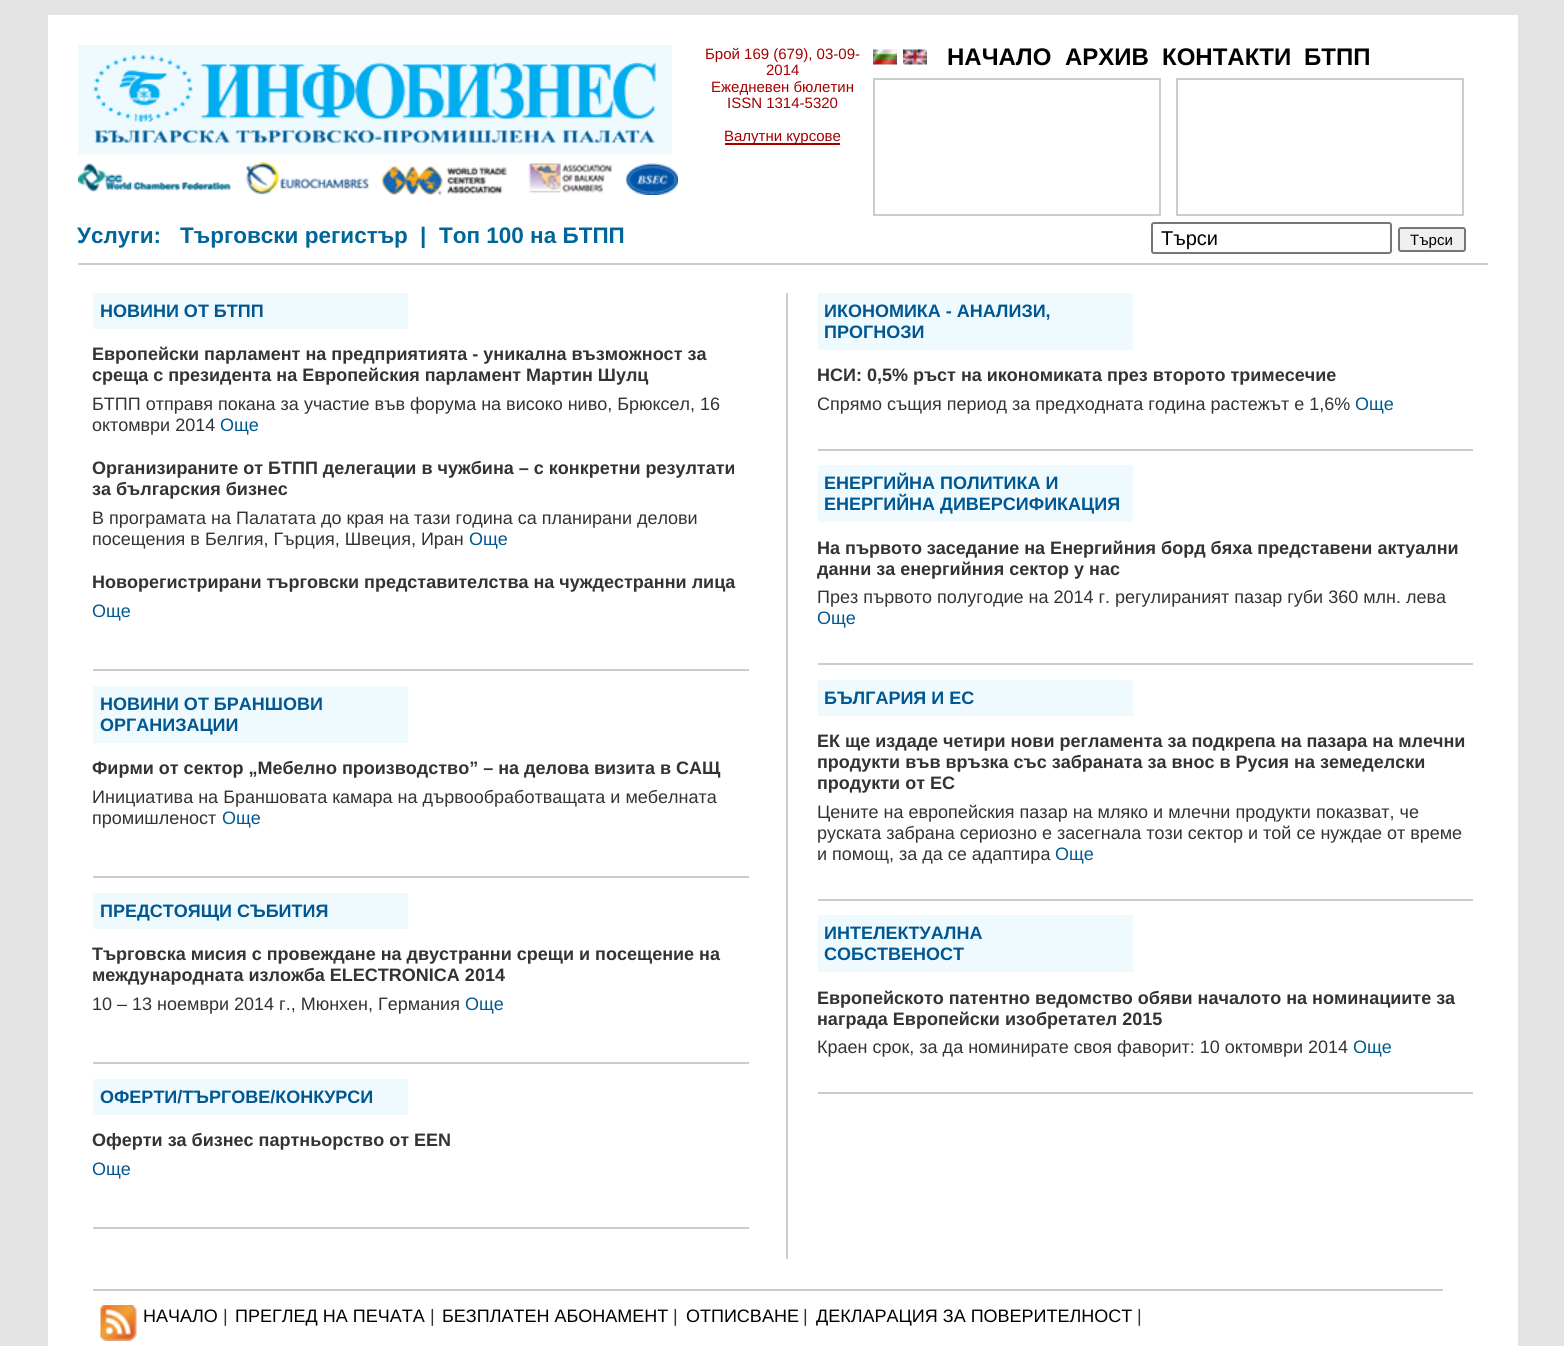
import math
import cairo

surface = cairo.ImageSurface(cairo.FORMAT_RGB24, 1564, 1346)
c = cairo.Context(surface)
options = cairo.FontOptions()
options.set_hint_metrics(cairo.HINT_METRICS_OFF)
options.set_hint_style(cairo.HINT_STYLE_NONE)
c.set_font_options(options)
c.set_miter_limit(4)
def C(code):
 c.set_source_rgb(*(v / 255 for v in bytes.fromhex(code[-6:])))
def F(family, size, italic, bold):
 c.select_font_face(family, cairo.FONT_SLANT_ITALIC if italic else cairo.FONT_SLANT_NORMAL, cairo.FONT_WEIGHT_BOLD if bold else cairo.FONT_WEIGHT_NORMAL)
 c.set_font_size(size)
def T(x, y, s):
 c.move_to(x, y)
 c.show_text(s)
def R(x, y, w, h):
 c.rectangle(x, y, w, h)
 c.fill()
def Q(x, y, w, h, r):
 c.new_sub_path()
 for i, (u, v) in enumerate([(x + w - r, y + h - r), (x + r, y + h - r), (x + r, y + r), (x + w - r, y + r)]):
  c.arc(u, v, r, i * math.pi / 2, (i + 1) * math.pi / 2)
 c.close_path()
def I(path, x, y, w, h):
 c.save()
 c.set_source_surface(cairo.ImageSurface.create_from_png(path), x, y)
 c.rectangle(x, y, w, h)
 c.fill()
 c.restore()
C('e3e3e3')
c.paint()
C('ffffff')
R(48,15,1470,1331)
C('cccccc')
R(78,263,1410,2)
I('1.png',78,45,594,110)
I('2.png',78,162,600,33)
F('Liberation Sans',15,0,0)
C('a40000')
T(705,59,'Брой 169 (679), 03-09-')
T(766,75,'2014')
T(711,92,'Ежедневен бюлетин')
T(727,108,'ISSN 1314-5320')
R(725,143,115,2)
T(724,141,'Валутни курсове')
I('3.png',873,49,24,16)
I('4.png',903,49,24,16)
F('Liberation Sans',24,0,1)
C('000000')
T(947,65,'НАЧАЛО')
T(1065,65,'АРХИВ')
T(1162,65,'КОНТАКТИ')
T(1304,65,'БТПП')
c.rectangle(874,79,286,136)
C('cccccc')
c.stroke()
c.rectangle(1177,79,286,136)
c.stroke()
F('Liberation Sans',22.5,0,1)
C('006699')
T(77,243,'Услуги:')
T(180,243,'Търговски регистър')
T(420,243,'|')
T(439,243,'Топ 100 на БТПП')
Q(1152,223,239,30,2)
C('767676')
c.stroke()
F('Liberation Sans',20,0,0)
C('000000')
T(1161,245,'Търси')
C('efefef')
Q(1399,228,66,23,2)
c.fill_preserve()
C('767676')
c.stroke()
F('Liberation Sans',15,0,0)
C('000000')
T(1410,245,'Търси')
C('cccccc')
R(786,293,2,966)
R(93,669,656,2)
C('effaff')
R(93,293,315,36)
F('Liberation Sans',18,0,1)
C('005791')
T(100,317,'НОВИНИ ОТ БТПП')
C('333333')
T(92,360,'Европейски парламент на предприятията - уникална възможност за')
T(92,381,'среща с президента на Европейския парламент Мартин Шулц')
F('Liberation Sans',18,0,0)
T(92,410,'БТПП отправя покана за участие във форума на високо ниво, Брюксел, 16')
T(92,431,'октомври 2014')
C('005791')
T(220,431,'Още')
F('Liberation Sans',18,0,1)
C('333333')
T(92,474,'Организираните от БТПП делегации в чужбина – с конкретни резултати')
T(92,495,'за българския бизнес')
F('Liberation Sans',18,0,0)
T(92,524,'В програмата на Палатата до края на тази година са планирани делови')
T(92,545,'посещения в Белгия, Гърция, Швеция, Иран')
C('005791')
T(469,545,'Още')
F('Liberation Sans',18,0,1)
C('333333')
T(92,588,'Новорегистрирани търговски представителства на чуждестранни лица')
F('Liberation Sans',18,0,0)
C('005791')
T(92,617,'Още')
C('cccccc')
R(93,876,656,2)
C('effaff')
R(93,686,315,57)
F('Liberation Sans',18,0,1)
C('005791')
T(100,710,'НОВИНИ ОТ БРАНШОВИ')
T(100,731,'ОРГАНИЗАЦИИ')
C('333333')
T(92,774,'Фирми от сектор „Мебелно производство” – на делова визита в САЩ')
F('Liberation Sans',18,0,0)
T(92,803,'Инициатива на Браншовата камара на дървообработващата и мебелната')
T(92,824,'промишленост')
C('005791')
T(222,824,'Още')
C('cccccc')
R(93,1062,656,2)
C('effaff')
R(93,893,315,36)
F('Liberation Sans',18,0,1)
C('005791')
T(100,917,'ПРЕДСТОЯЩИ СЪБИТИЯ')
C('333333')
T(92,960,'Търговска мисия с провеждане на двустранни срещи и посещение на')
T(92,981,'международната изложба ELECTRONICA 2014')
F('Liberation Sans',18,0,0)
T(92,1010,'10 – 13 ноември 2014 г., Мюнхен, Германия')
C('005791')
T(465,1010,'Още')
C('cccccc')
R(93,1227,656,2)
C('effaff')
R(93,1079,315,36)
F('Liberation Sans',18,0,1)
C('005791')
T(100,1103,'ОФЕРТИ/ТЪРГОВЕ/КОНКУРСИ')
C('333333')
T(92,1146,'Оферти за бизнес партньорство от EEN')
F('Liberation Sans',18,0,0)
C('005791')
T(92,1175,'Още')
C('cccccc')
R(818,449,655,2)
C('effaff')
R(818,293,315,57)
F('Liberation Sans',18,0,1)
C('005791')
T(824,317,'ИКОНОМИКА - АНАЛИЗИ,')
T(824,338,'ПРОГНОЗИ')
C('333333')
T(817,381,'НСИ: 0,5% ръст на икономиката през второто тримесечие')
F('Liberation Sans',18,0,0)
T(817,410,'Спрямо същия период за предходната година растежът е 1,6%')
C('005791')
T(1355,410,'Още')
C('cccccc')
R(818,663,655,2)
C('effaff')
R(818,465,315,57)
F('Liberation Sans',18,0,1)
C('005791')
T(824,489,'ЕНЕРГИЙНА ПОЛИТИКА И')
T(824,510,'ЕНЕРГИЙНА ДИВЕРСИФИКАЦИЯ')
C('333333')
T(817,554,'На първото заседание на Енергийния борд бяха представени актуални')
T(817,575,'данни за енергийния сектор у нас')
F('Liberation Sans',18,0,0)
T(817,603,'През първото полугодие на 2014 г. регулираният пазар губи 360 млн. лева')
C('005791')
T(817,624,'Още')
C('cccccc')
R(818,899,655,2)
C('effaff')
R(818,680,315,36)
F('Liberation Sans',18,0,1)
C('005791')
T(824,704,'БЪЛГАРИЯ И ЕС')
C('333333')
T(817,747,'ЕК ще издаде четири нови регламента за подкрепа на пазара на млечни')
T(817,768,'продукти във връзка със забраната за внос в Русия на земеделски')
T(817,789,'продукти от ЕС')
F('Liberation Sans',18,0,0)
T(817,818,'Цените на европейския пазар на мляко и млечни продукти показват, че')
T(817,839,'руската забрана сериозно е засегнала този сектор и той се нуждае от време')
T(817,860,'и помощ, за да се адаптира')
C('005791')
T(1055,860,'Още')
C('cccccc')
R(818,1092,655,2)
C('effaff')
R(818,915,315,57)
F('Liberation Sans',18,0,1)
C('005791')
T(824,939,'ИНТЕЛЕКТУАЛНА')
T(824,960,'СОБСТВЕНОСТ')
C('333333')
T(817,1004,'Европейското патентно ведомство обяви началото на номинациите за')
T(817,1025,'награда Европейски изобретател 2015')
F('Liberation Sans',18,0,0)
T(817,1053,'Краен срок, за да номинирате своя фаворит: 10 октомври 2014')
C('005791')
T(1353,1053,'Още')
C('cccccc')
R(93,1289,1350,2)
I('5.png',100,1305,37,36)
C('000000')
T(143,1322,'НАЧАЛО')
C('333333')
T(223,1322,'|')
C('000000')
T(235,1322,'ПРЕГЛЕД НА ПЕЧАТА')
C('333333')
T(430,1322,'|')
C('000000')
T(442,1322,'БЕЗПЛАТЕН AБОНАМЕНТ')
C('333333')
T(673,1322,'|')
C('000000')
T(686,1322,'ОТПИСВАНЕ')
C('333333')
T(803,1322,'|')
C('000000')
T(816,1322,'ДЕКЛАРАЦИЯ ЗА ПОВЕРИТЕЛНОСT')
C('333333')
T(1137,1322,'|')
surface.write_to_png('o.png')
